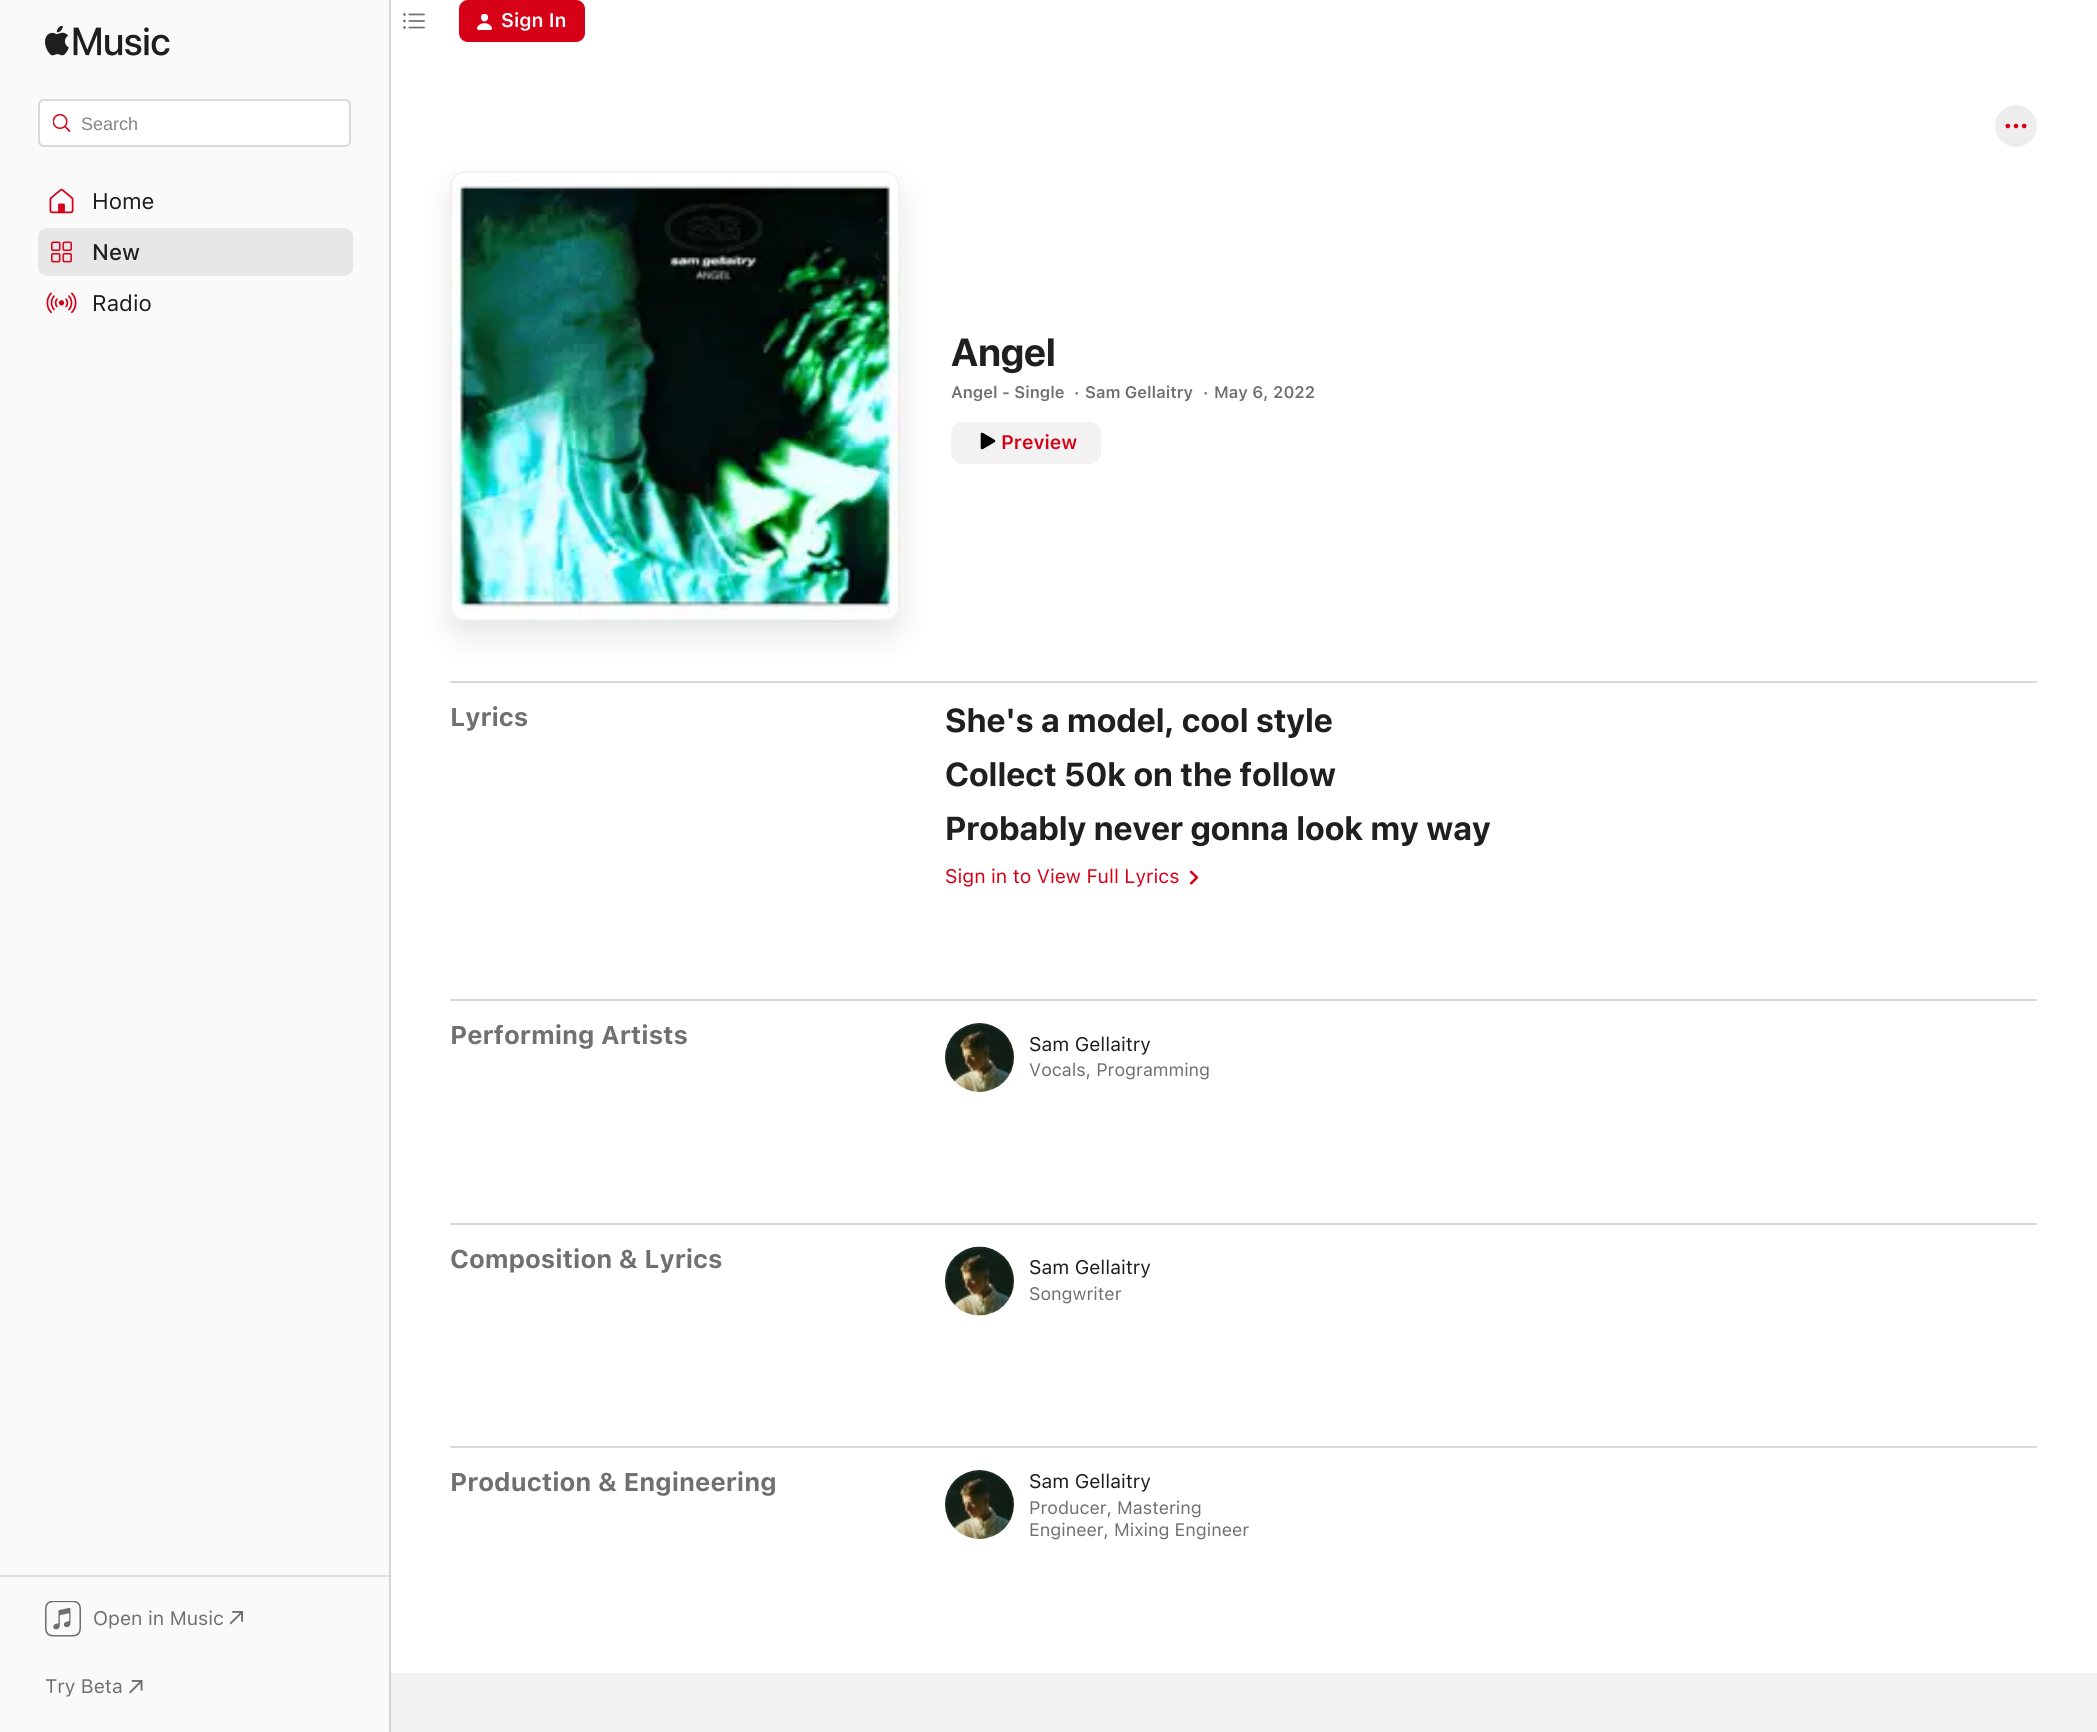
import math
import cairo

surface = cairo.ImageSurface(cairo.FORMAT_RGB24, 2097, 1732)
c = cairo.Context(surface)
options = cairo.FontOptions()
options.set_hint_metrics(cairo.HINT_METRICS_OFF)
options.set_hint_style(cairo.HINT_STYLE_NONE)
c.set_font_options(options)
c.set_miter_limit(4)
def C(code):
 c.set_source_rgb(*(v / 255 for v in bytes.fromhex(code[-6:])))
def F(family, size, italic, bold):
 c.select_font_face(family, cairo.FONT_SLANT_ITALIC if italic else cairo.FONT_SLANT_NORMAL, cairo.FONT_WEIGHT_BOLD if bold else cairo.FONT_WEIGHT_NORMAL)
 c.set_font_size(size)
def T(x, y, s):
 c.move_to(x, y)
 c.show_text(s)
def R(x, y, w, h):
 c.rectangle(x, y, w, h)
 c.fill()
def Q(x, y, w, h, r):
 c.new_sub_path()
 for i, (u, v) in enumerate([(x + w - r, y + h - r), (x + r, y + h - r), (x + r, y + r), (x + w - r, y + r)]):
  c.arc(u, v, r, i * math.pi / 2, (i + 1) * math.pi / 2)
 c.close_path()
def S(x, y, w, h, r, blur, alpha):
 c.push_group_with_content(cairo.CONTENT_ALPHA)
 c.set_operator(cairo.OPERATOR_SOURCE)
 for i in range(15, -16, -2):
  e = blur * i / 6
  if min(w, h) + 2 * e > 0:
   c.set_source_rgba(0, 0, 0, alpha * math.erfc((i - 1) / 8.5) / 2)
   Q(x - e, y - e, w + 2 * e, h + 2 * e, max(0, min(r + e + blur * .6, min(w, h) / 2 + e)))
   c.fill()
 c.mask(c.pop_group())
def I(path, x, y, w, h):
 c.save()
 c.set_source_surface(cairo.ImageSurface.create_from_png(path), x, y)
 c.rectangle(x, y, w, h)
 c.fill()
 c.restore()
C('ffffff')
c.paint()
C('d9d9d9')
R(390,0,1,1673)
I('1.png',403,13,22,16)
C('d60017')
Q(459,0,126,42,9)
c.fill()
I('2.png',477,14,15,16)
F('SF SemiBold',19.5,0,0)
C('ffffff')
T(501,27,'Sign In')
C('fafafa')
R(0,0,389,1732)
C('e1e1e1')
R(0,1575,390,2)
C('d5d5d5')
R(389,0,1,1732)
C('c0c0c0')
R(389,1575,1,2)
I('3.png',45,26,125,30)
C('ffffff')
Q(39,100,311,46,5)
c.fill_preserve()
C('d9d9d9')
c.stroke()
I('4.png',53,114,18,18)
F('Liberation Sans',18,0,0)
C('858585')
T(81,130,'Search')
I('5.png',49,188,25,26)
F('SF',22.5,0,0)
C('1f1f1f')
T(92,209,'Home')
C('e7e7e8')
Q(38,228,315,48,9)
c.fill()
I('6.png',51,241,21,22)
F('SF Medium',22.5,0,0)
C('1f1f1f')
T(92,260,'New')
I('7.png',46,292,31,22)
F('SF',22.5,0,0)
T(92,311,'Radio')
I('8.png',45,1601,36,36)
F('SF',19.5,0,0)
C('707070')
T(93,1625,'Open in Music')
I('9.png',230,1611,13,14)
T(45,1693,'Try Beta')
I('10.png',129,1680,14,14)
C('fafafa')
c.arc(2016,126,21,0,2 * math.pi)
c.fill()
I('11.png',1995,105,42,42)
C('d9d9d9')
R(450,681,1587,2)
c.save()
c.set_fill_rule(cairo.FILL_RULE_EVEN_ODD)
c.new_path()
c.move_to(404,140)
c.line_to(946,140)
c.line_to(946,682)
c.line_to(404,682)
c.close_path()
c.move_to(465,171)
c.line_to(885,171)
c.curve_to(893.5,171,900,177.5,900,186)
c.line_to(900,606)
c.curve_to(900,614.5,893.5,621,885,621)
c.line_to(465,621)
c.curve_to(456.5,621,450,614.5,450,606)
c.line_to(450,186)
c.curve_to(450,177.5,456.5,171,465,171)
c.close_path()
c.clip()
C('000000')
S(450,186,450,450,15,15,.1)
c.restore()
I('12.png',450,180,450,441)
Q(451,172,448,448,14)
c.set_source_rgba(0.502,0.502,0.502,0.1)
c.stroke()
I('13.png',476,621,398,1)
F('SF',39,0,1)
C('1f1f1f')
T(951,366,'Angel')
F('SF SemiBold',16.5,0,0)
C('707070')
T(951,398,'Angel - Single')
T(1074,398,'·')
T(1085,398,'Sam Gellaitry')
T(1203,398,'·')
T(1214,398,'May 6, 2022')
C('f2f2f2')
Q(951,422,150,42,11)
c.fill()
I('14.png',980,432,16,18)
F('SF SemiBold',19.5,0,0)
C('d60017')
T(1001,449,'Preview')
F('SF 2',25.5,0,1)
C('707070')
T(450,726,'Lyrics')
F('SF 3',33,0,1)
C('1f1f1f')
T(945,732,'She\'s a model, cool style')
T(945,786,'Collect 50k on the follow')
T(945,840,'Probably never gonna look my way')
F('SF',19.5,0,0)
C('d60017')
T(945,883,'Sign in to View Full Lyrics')
I('15.png',1189,870,10,15)
C('d9d9d9')
R(450,999,1587,2)
F('SF 2',25.5,0,1)
C('707070')
T(450,1044,'Performing Artists')
I('16.png',945,1023,69,69)
c.arc(979.5,1057.5,33.5,0,2 * math.pi)
c.set_source_rgba(0.502,0.502,0.502,0.1)
c.stroke()
F('SF',19.5,0,0)
C('1f1f1f')
T(1029,1051,'Sam Gellaitry')
F('SF',18,0,0)
C('707070')
T(1029,1076,'Vocals, Programming')
C('d9d9d9')
R(450,1223,1587,2)
F('SF 2',25.5,0,1)
C('707070')
T(450,1268,'Composition & Lyrics')
I('17.png',945,1246,69,70)
c.arc(979.5,1281.5,33.5,0,2 * math.pi)
c.set_source_rgba(0.502,0.502,0.502,0.1)
c.stroke()
F('SF',19.5,0,0)
C('1f1f1f')
T(1029,1274,'Sam Gellaitry')
F('SF',18,0,0)
C('707070')
T(1029,1300,'Songwriter')
C('d9d9d9')
R(450,1446,1587,2)
F('SF 2',25.5,0,1)
C('707070')
T(450,1491,'Production & Engineering')
I('18.png',945,1470,69,69)
c.arc(979.5,1504.5,33.5,0,2 * math.pi)
c.set_source_rgba(0.502,0.502,0.502,0.1)
c.stroke()
F('SF',19.5,0,0)
C('1f1f1f')
T(1029,1488,'Sam Gellaitry')
F('SF',18,0,0)
C('707070')
T(1029,1514,'Producer, Mastering')
T(1029,1536,'Engineer, Mixing Engineer')
C('f2f2f2')
R(391,1673,1706,59)
C('cecece')
R(390,1673,1,59)
surface.write_to_png('o.png')
